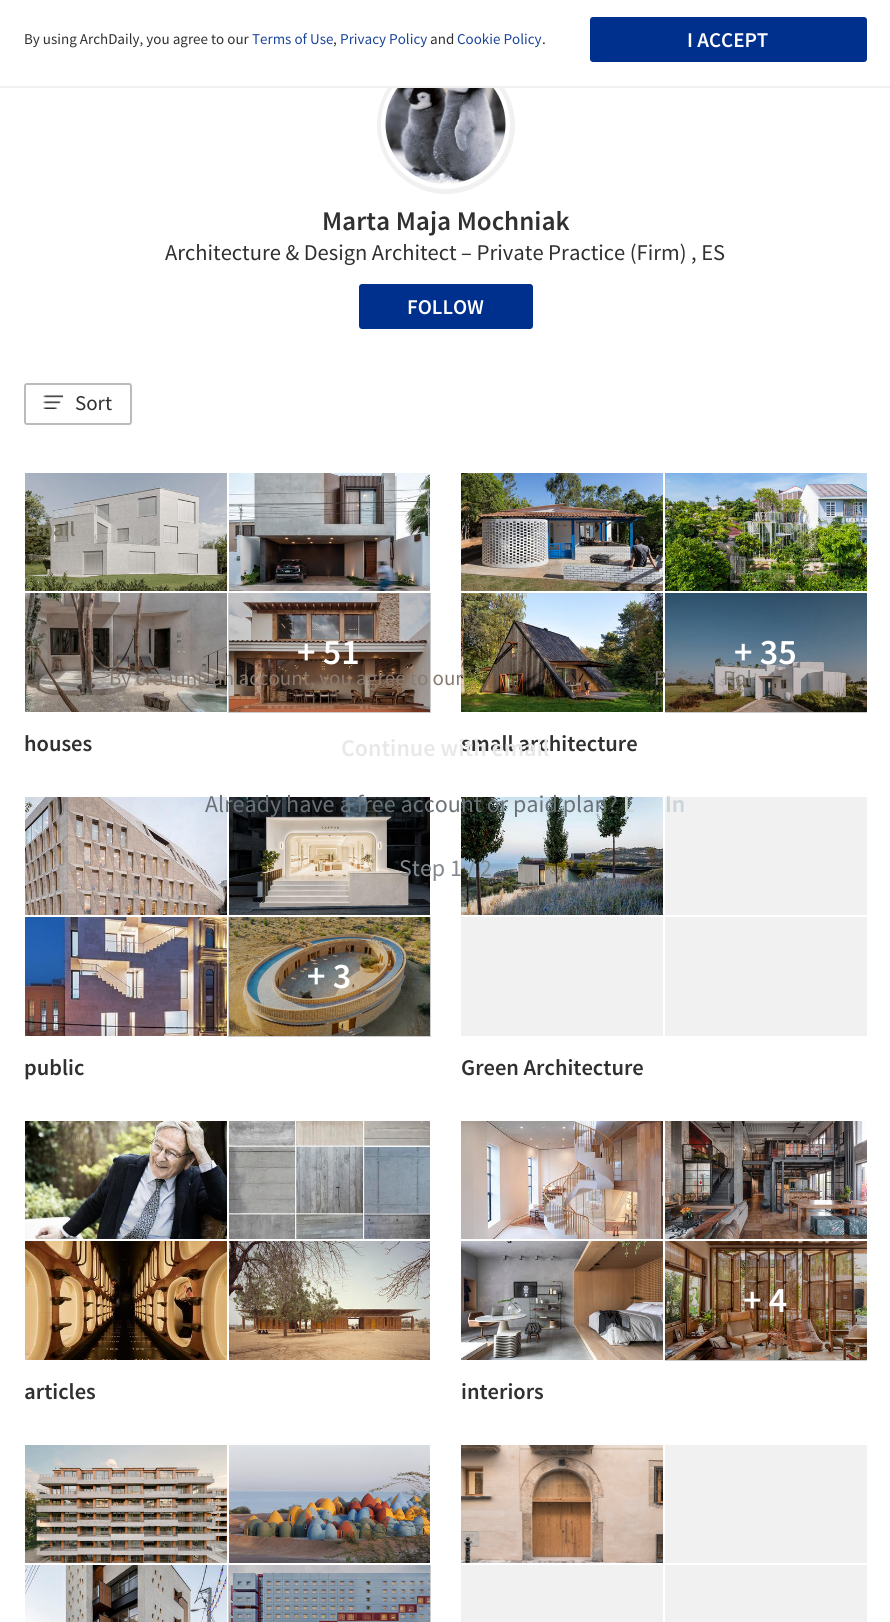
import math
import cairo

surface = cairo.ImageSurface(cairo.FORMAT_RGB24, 890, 1622)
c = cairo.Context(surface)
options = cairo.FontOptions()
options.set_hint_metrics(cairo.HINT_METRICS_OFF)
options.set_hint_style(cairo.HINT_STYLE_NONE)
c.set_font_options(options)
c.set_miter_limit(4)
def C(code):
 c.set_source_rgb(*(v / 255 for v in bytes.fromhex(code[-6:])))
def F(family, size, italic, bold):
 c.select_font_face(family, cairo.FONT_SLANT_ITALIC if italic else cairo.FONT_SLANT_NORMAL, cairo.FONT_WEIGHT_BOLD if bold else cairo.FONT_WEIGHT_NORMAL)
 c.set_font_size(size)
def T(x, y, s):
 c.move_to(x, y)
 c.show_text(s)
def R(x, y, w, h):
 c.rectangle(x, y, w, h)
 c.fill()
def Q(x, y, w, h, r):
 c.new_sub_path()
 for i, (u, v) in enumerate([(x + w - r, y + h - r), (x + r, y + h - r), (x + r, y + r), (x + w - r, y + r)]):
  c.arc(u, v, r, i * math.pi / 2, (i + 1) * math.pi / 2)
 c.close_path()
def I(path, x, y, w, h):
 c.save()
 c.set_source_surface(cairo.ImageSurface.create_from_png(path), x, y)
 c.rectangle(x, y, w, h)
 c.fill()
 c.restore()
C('ffffff')
c.paint()
c.arc(446,125,64.5,0,2 * math.pi)
C('f1f1f1')
c.set_line_width(9)
c.stroke()
c.arc(445.5,124.5,62,0,2 * math.pi)
C('ffffff')
c.set_line_width(5)
c.stroke()
R(389,56,114,30)
C('f1f1f1')
R(0,86,890,2)
F('Source Sans Pro',15,0,0)
C('303030')
T(24,44,'By using ArchDaily, you agree to our')
C('1a4599')
T(252,44,'Terms of Use')
C('303030')
T(333,44,',')
C('1a4599')
T(340,44,'Privacy Policy')
C('303030')
T(430,44,'and')
C('1a4599')
T(457,44,'Cookie Policy')
C('303030')
T(542,44,'.')
C('00308e')
Q(590,17,277,45,3)
c.fill()
F('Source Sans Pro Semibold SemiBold',21,0,0)
C('ffffff')
T(687,47,'I ACCEPT')
I('1.png',385,88,121,96)
F('Source Sans Pro Semibold SemiBold',27,0,0)
C('303030')
T(322,230,'Marta Maja Mochniak')
F('Source Sans Pro',22.5,0,0)
T(165,260,'Architecture & Design Architect – Private Practice (Firm) , ES')
C('00308e')
Q(359,284,174,45,3)
c.fill()
F('Source Sans Pro Semibold SemiBold',21,0,0)
C('ffffff')
T(407,314,'FOLLOW')
Q(25,384,106,40,2)
C('bbbbbb')
c.set_line_width(2)
c.stroke()
I('2.png',43,395,20,14)
F('Source Sans Pro',21,0,0)
C('303030')
T(75,410,'Sort')
I('3.png',25,473,202,118)
I('4.png',229,473,201,118)
I('5.png',25,593,202,119)
I('6.png',229,593,201,119)
c.set_source_rgba(0,0,0,0.2)
R(228,593,203,120)
F('Source Sans Pro Semibold SemiBold',36,0,0)
C('ffffff')
T(297,664,'+ 51')
F('Source Sans Pro Semibold SemiBold',22.5,0,0)
C('303030')
T(24,751,'houses')
I('7.png',461,473,202,118)
I('8.png',665,473,202,118)
I('9.png',461,593,202,119)
I('10.png',665,593,202,119)
c.set_source_rgba(0,0,0,0.2)
R(665,593,202,120)
F('Source Sans Pro Semibold SemiBold',36,0,0)
C('ffffff')
T(734,664,'+ 35')
F('Source Sans Pro Semibold SemiBold',22.5,0,0)
C('303030')
T(461,751,'small architecture')
I('11.png',25,797,202,118)
I('12.png',229,797,201,118)
I('13.png',25,917,202,119)
I('14.png',229,917,201,119)
c.set_source_rgba(0,0,0,0.2)
R(228,917,203,120)
F('Source Sans Pro Semibold SemiBold',36,0,0)
C('ffffff')
T(307,988,'+ 3')
F('Source Sans Pro Semibold SemiBold',22.5,0,0)
C('303030')
T(24,1075,'public')
I('15.png',461,797,202,118)
C('f1f1f1')
R(665,797,202,118)
R(461,917,202,119)
R(665,917,202,119)
C('303030')
T(461,1075,'Green Architecture')
I('16.png',25,1121,202,118)
I('17.png',229,1121,201,118)
I('18.png',25,1241,202,119)
I('19.png',229,1241,201,119)
T(24,1399,'articles')
I('20.png',461,1121,202,118)
I('21.png',665,1121,202,118)
I('22.png',461,1241,202,119)
I('23.png',665,1241,202,119)
c.set_source_rgba(0,0,0,0.2)
R(665,1241,202,120)
F('Source Sans Pro Semibold SemiBold',36,0,0)
C('ffffff')
T(743,1312,'+ 4')
F('Source Sans Pro Semibold SemiBold',22.5,0,0)
C('303030')
T(461,1399,'interiors')
I('24.png',25,1445,202,118)
I('25.png',229,1445,201,118)
I('26.png',25,1565,202,57)
I('27.png',229,1565,201,57)
c.set_source_rgba(0,0,0,0.2)
R(228,1565,203,57)
I('28.png',461,1445,202,118)
C('f1f1f1')
R(665,1445,202,118)
R(461,1565,202,57)
R(665,1565,202,57)
F('Source Sans Pro Semibold SemiBold',21,0,0)
C('76725e')
T(24,536,'Email')
F('Source Sans Pro',21,0,0)
C('897a6f')
T(109,685,'By creating an account, you agree to our')
C('7d7a76')
T(654,685,'P')
T(723,685,'Pol')
F('Source Sans Pro Semibold SemiBold',24,0,0)
C('e8e8e8')
T(341,756,'Continue with email')
F('Source Sans Pro',24,0,0)
C('6a7277')
T(205,812,'Already have a free account or paid plan?')
F('Source Sans Pro Semibold SemiBold',24,0,0)
C('c9d5d9')
T(623,812,'L')
T(665,812,'In')
F('Source Sans Pro',24,0,0)
C('81888d')
T(399,876,'Step 1 / 2')
surface.write_to_png('o.png')
